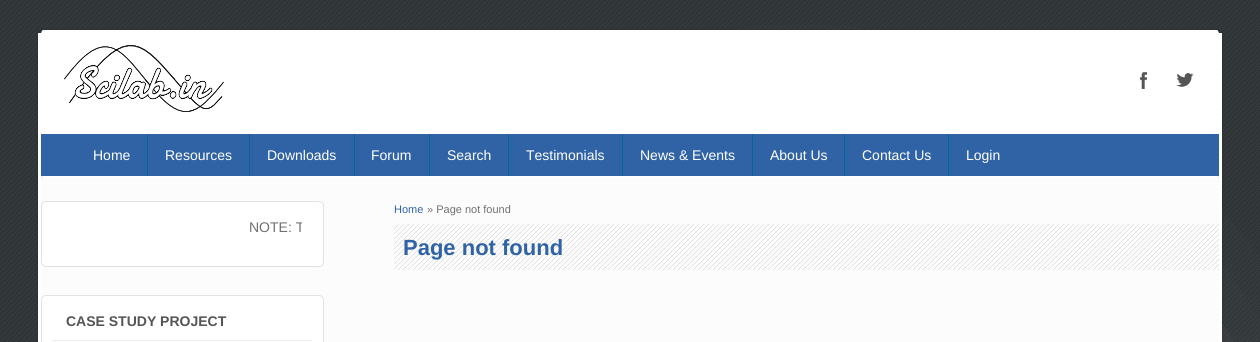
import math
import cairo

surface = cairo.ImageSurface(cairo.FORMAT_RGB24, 1260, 342)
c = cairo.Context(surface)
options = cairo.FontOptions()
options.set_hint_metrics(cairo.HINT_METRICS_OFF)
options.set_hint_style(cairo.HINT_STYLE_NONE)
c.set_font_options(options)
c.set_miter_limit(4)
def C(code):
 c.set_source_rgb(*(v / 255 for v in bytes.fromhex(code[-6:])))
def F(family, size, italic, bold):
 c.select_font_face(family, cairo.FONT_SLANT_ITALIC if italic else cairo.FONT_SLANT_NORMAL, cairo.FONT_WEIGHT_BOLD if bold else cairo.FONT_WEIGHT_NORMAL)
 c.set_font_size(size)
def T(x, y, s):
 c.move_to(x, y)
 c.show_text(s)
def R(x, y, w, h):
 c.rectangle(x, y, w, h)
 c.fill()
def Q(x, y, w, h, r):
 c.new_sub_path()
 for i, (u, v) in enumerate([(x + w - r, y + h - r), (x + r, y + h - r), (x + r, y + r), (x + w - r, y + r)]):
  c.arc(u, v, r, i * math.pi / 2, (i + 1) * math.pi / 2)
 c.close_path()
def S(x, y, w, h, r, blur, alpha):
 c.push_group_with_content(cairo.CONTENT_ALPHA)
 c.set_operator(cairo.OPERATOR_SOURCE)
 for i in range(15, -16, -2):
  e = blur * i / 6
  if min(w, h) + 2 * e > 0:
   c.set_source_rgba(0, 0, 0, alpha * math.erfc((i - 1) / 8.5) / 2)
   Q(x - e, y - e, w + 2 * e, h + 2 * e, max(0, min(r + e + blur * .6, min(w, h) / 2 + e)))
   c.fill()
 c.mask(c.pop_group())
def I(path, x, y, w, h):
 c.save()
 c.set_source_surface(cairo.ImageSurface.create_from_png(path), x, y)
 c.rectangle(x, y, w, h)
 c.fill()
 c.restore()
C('33383a')
c.paint()
I('1.png',0,0,1260,342)
C('000000')
S(38,30,1184,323,5,2,.2)
C('ffffff')
S(502,275,610,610,305,100,1)
C('eeeeee')
c.new_path()
c.move_to(43,30)
c.line_to(1217,30)
c.curve_to(1218,30,1219,32,1219,35)
c.line_to(1219,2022)
c.curve_to(1219,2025,1218,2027,1217,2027)
c.line_to(43,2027)
c.curve_to(42,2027,41,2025,41,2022)
c.line_to(41,35)
c.curve_to(41,32,42,30,43,30)
c.close_path()
c.fill()
C('ffffff')
R(1219,33,3,309)
R(38,33,3,309)
Q(41,30,1178,148,5)
c.fill()
I('2.png',64,45,160,67)
I('3.png',1140,72,7,17)
I('4.png',1176,73,18,14)
C('3063a5')
R(41,134,1178,42)
C('006797')
R(147,134,1,42)
F('Liberation Sans',14,0,0)
C('ffffff')
T(93,160,'Home')
C('006797')
R(249,134,1,42)
C('ffffff')
T(165,160,'Resources')
C('006797')
R(354,134,1,42)
C('ffffff')
T(267,160,'Downloads')
C('006797')
R(429,134,1,42)
C('ffffff')
T(371,160,'Forum')
C('006797')
R(508,134,1,42)
C('ffffff')
T(447,160,'Search')
C('006797')
R(622,134,1,42)
C('ffffff')
T(526,160,'Testimonials')
C('006797')
R(752,134,1,42)
C('ffffff')
T(640,160,'News & Events')
C('006797')
R(844,134,1,42)
C('ffffff')
T(770,160,'About Us')
C('006797')
R(948,134,1,42)
C('ffffff')
T(862,160,'Contact Us')
T(966,160,'Login')
C('fcfcfc')
R(41,178,1178,164)
C('ffffff')
Q(41.5,201.5,282,65,4.5)
c.fill_preserve()
C('e2e2e2')
c.set_line_width(1)
c.stroke()
c.save()
c.rectangle(63,216,239,23)
c.clip()
C('726f6f')
T(249,232,'NOTE: T')
c.restore()
C('ffffff')
Q(41.5,295.5,282,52,4.5)
c.fill_preserve()
C('e2e2e2')
c.stroke()
C('eeeeee')
R(52,340,260,1)
F('Liberation Sans',14,0,1)
C('555555')
T(66,326,'CASE STUDY PROJECT')
F('Liberation Sans',11,0,0)
C('3063a5')
T(394,213,'Home')
C('726f6f')
T(427,213,'» Page not found')
I('5.png',394,224,825,46)
F('Liberation Sans',22,0,1)
C('3063a5')
T(403,255,'Page not found')
surface.write_to_png('o.png')
